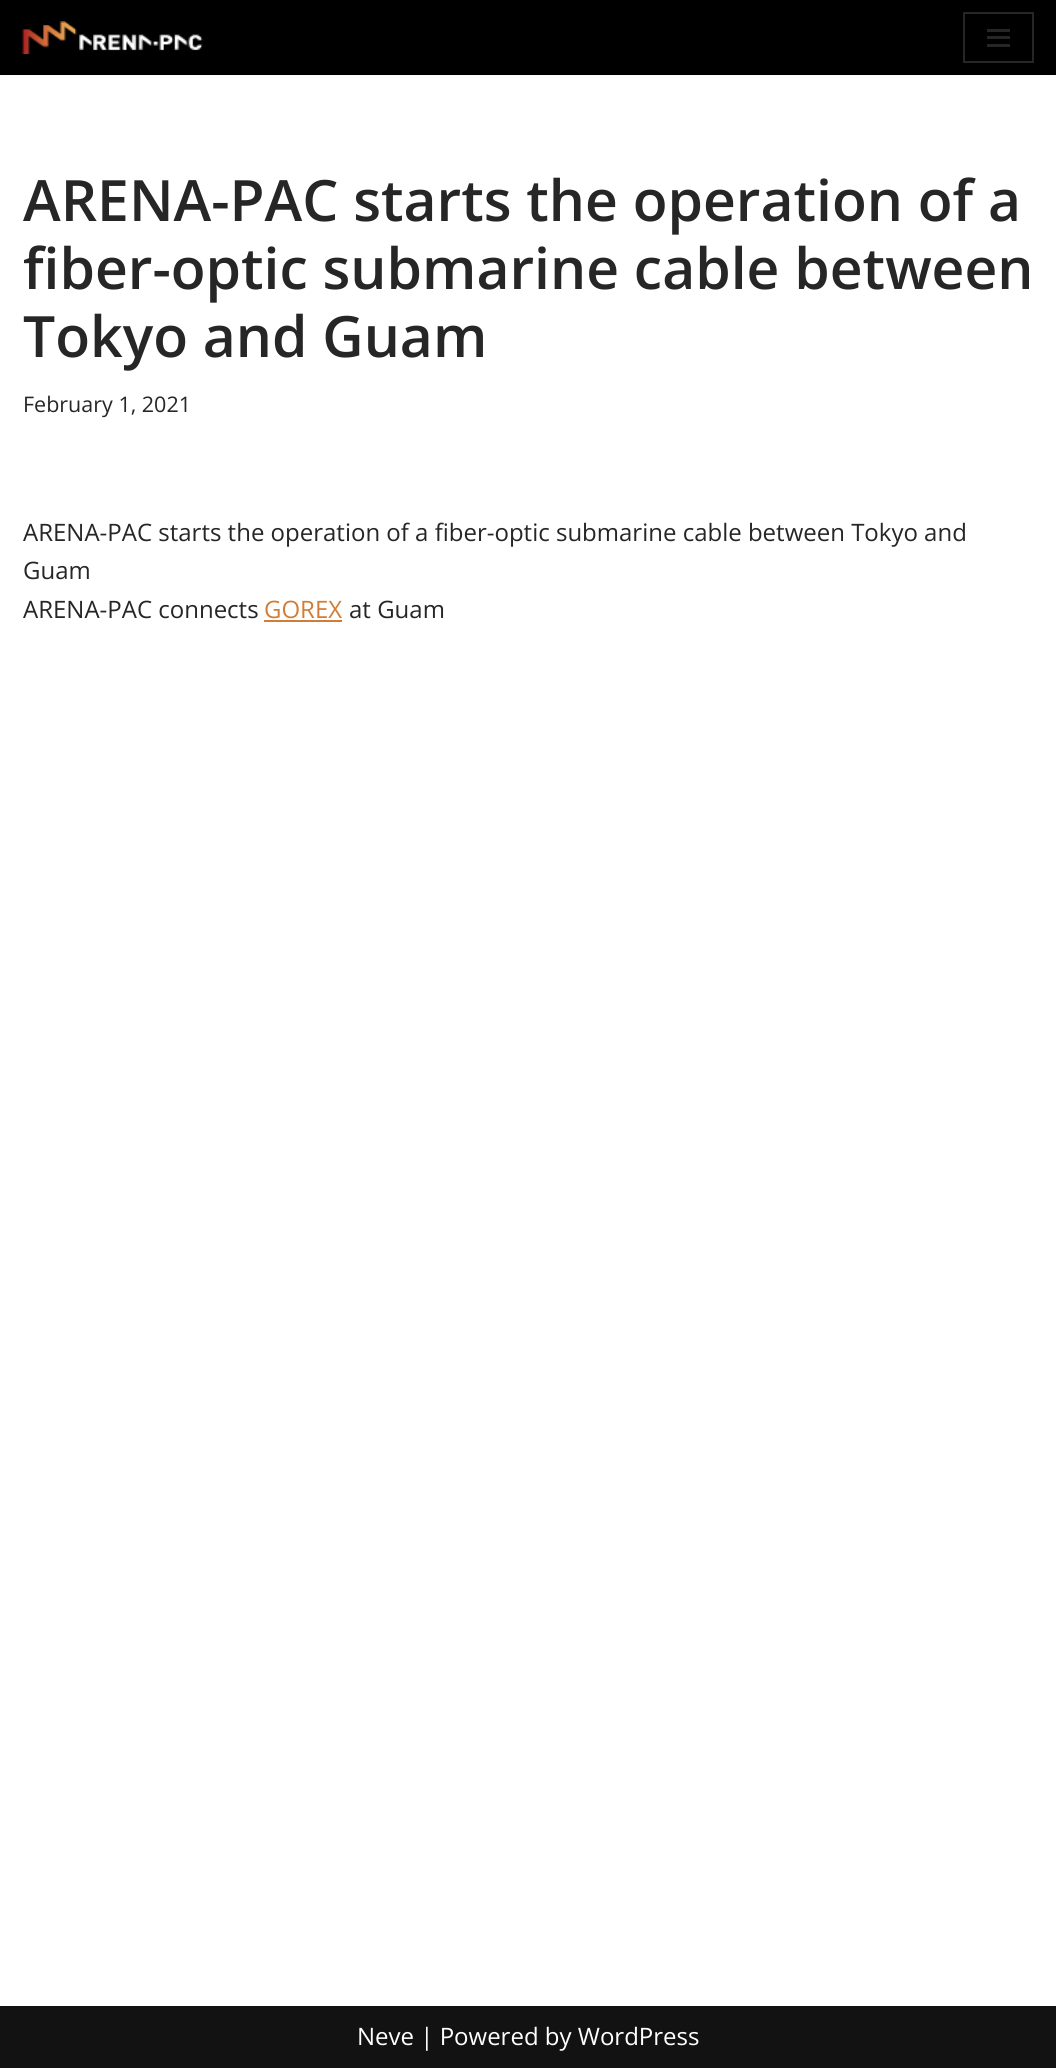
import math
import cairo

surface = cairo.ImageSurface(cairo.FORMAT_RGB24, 1056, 2068)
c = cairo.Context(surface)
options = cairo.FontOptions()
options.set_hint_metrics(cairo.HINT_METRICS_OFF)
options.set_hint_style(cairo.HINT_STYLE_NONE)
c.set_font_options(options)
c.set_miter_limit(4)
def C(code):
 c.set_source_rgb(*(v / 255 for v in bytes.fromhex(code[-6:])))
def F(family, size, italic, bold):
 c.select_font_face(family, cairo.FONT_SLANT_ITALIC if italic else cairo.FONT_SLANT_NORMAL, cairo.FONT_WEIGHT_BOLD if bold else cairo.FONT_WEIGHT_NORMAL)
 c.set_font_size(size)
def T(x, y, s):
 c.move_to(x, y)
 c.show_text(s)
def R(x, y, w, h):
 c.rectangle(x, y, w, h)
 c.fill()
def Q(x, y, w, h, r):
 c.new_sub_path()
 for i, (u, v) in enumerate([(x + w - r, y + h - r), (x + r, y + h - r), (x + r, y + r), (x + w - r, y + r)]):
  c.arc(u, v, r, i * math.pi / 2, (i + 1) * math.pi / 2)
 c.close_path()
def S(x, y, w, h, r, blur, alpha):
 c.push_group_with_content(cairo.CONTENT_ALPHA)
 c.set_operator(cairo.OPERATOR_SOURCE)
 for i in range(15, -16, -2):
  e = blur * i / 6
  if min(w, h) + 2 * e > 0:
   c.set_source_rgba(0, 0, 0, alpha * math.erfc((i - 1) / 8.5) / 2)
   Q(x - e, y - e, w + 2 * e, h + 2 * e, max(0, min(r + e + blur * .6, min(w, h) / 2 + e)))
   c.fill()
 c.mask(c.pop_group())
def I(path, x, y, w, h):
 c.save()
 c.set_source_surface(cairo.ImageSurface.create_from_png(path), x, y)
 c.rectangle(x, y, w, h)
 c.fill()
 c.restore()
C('ffffff')
c.paint()
C('000000')
S(0,-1,1056,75,0,2,.1)
C('000000')
R(0,0,1056,75)
I('1.png',22,21,181,33)
c.rectangle(964,13,69,49)
C('272626')
c.stroke()
R(987,29,23,3)
R(987,36,23,3)
R(987,44,23,3)
F('Open Sans SemiBold',57,0,0)
T(23,221,'ARENA-PAC starts the operation of a')
T(23,289,'fiber-optic submarine cable between')
T(23,357,'Tokyo and Guam')
F('Open Sans',21.5,0,0)
T(23,412,'February 1, 2021')
F('Open Sans',24,0,0)
T(23,541,'ARENA-PAC starts the operation of a fiber-optic submarine cable between Tokyo and')
T(23,579,'Guam')
T(23,618,'ARENA-PAC connects')
C('d27d37')
T(264,618,'GOREX')
R(264,620,78,2)
C('272626')
T(349,618,'at Guam')
C('121212')
R(0,2006,1056,62)
C('ffffff')
T(357,2045,'Neve | Powered by WordPress')
surface.write_to_png('o.png')
